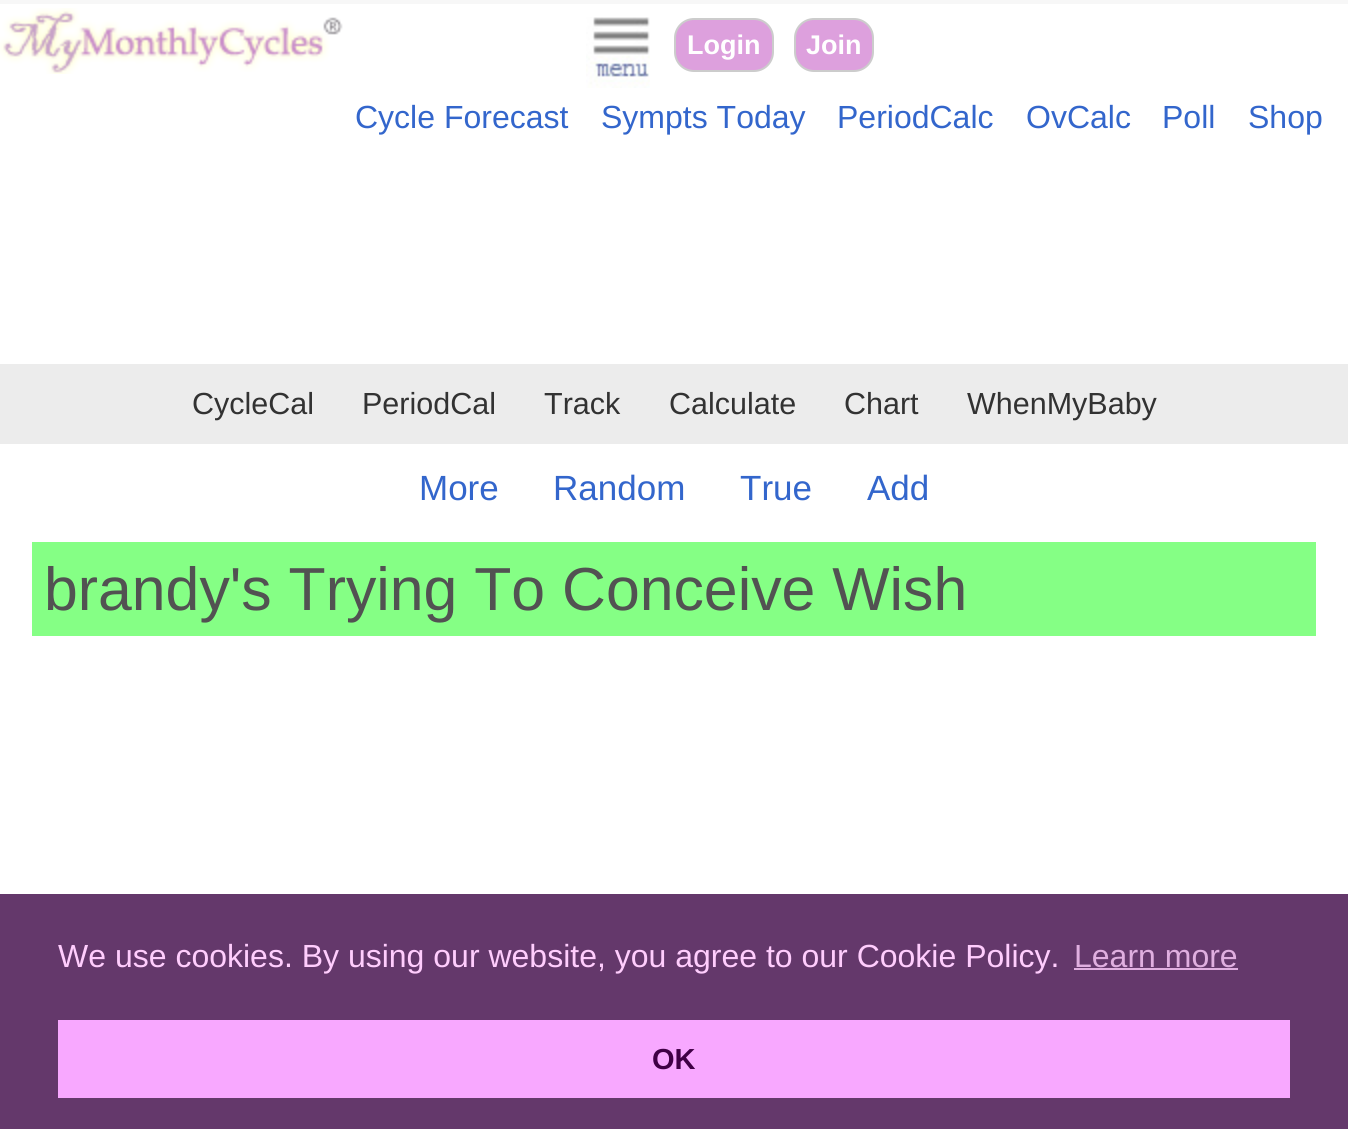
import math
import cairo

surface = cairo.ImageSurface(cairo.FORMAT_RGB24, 1348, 1129)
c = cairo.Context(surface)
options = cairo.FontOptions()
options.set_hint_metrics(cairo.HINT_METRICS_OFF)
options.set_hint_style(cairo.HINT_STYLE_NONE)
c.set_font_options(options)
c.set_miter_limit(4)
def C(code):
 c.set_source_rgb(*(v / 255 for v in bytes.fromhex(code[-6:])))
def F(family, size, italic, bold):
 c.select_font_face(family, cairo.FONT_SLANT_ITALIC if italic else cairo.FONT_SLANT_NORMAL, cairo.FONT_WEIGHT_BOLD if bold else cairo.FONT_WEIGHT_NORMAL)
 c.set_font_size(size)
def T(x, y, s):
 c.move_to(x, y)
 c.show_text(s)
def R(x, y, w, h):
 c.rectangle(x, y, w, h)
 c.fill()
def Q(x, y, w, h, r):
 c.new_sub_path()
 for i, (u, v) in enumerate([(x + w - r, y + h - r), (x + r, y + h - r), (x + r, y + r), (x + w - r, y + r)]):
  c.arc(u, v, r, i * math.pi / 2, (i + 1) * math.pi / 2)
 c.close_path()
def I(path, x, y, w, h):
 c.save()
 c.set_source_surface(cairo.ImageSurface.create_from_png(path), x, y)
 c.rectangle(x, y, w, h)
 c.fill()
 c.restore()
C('f7f7f7')
c.paint()
C('ffffff')
R(0,4,1348,890)
I('1.png',0,8,343,66)
I('2.png',586,17,64,71)
C('dda0dd')
Q(675,19,98,52,19)
c.fill_preserve()
C('cccccc')
c.stroke()
F('Liberation Sans',27,0,1)
C('ffffff')
T(687,54,'Login')
C('dda0dd')
Q(795,19,78,52,19)
c.fill_preserve()
C('cccccc')
c.stroke()
C('ffffff')
T(806,54,'Join')
F('Liberation Sans',32,0,0)
C('3366cc')
T(355,128,'Cycle Forecast')
T(601,128,'Sympts Today')
T(837,128,'PeriodCalc')
T(1026,128,'OvCalc')
T(1162,128,'Poll')
T(1248,128,'Shop')
C('ececec')
R(0,364,1348,80)
F('Liberation Sans',30.5,0,0)
C('323232')
T(192,414,'CycleCal')
T(362,414,'PeriodCal')
T(544,414,'Track')
T(669,414,'Calculate')
T(844,414,'Chart')
T(967,414,'WhenMyBaby')
F('Liberation Sans',35,0,0)
C('3366cc')
T(419,500,'More')
T(553,500,'Random')
T(740,500,'True')
T(867,500,'Add')
C('85ff85')
R(32,542,1284,94)
F('Liberation Sans',60.75,0,0)
C('525252')
T(44,610,'brandy\'s Trying To Conceive Wish')
C('64386b')
R(0,894,1348,235)
F('Liberation Sans',32,0,0)
C('ffcdfd')
T(58,967,'We use cookies. By using our website, you agree to our Cookie Policy.')
C('e0afe0')
T(1074,967,'Learn more')
R(1074,968,164,2)
C('f8a8ff')
R(58,1020,1232,78)
F('Liberation Sans',29,0,1)
C('3f0045')
T(652,1069,'OK')
surface.write_to_png('o.png')
